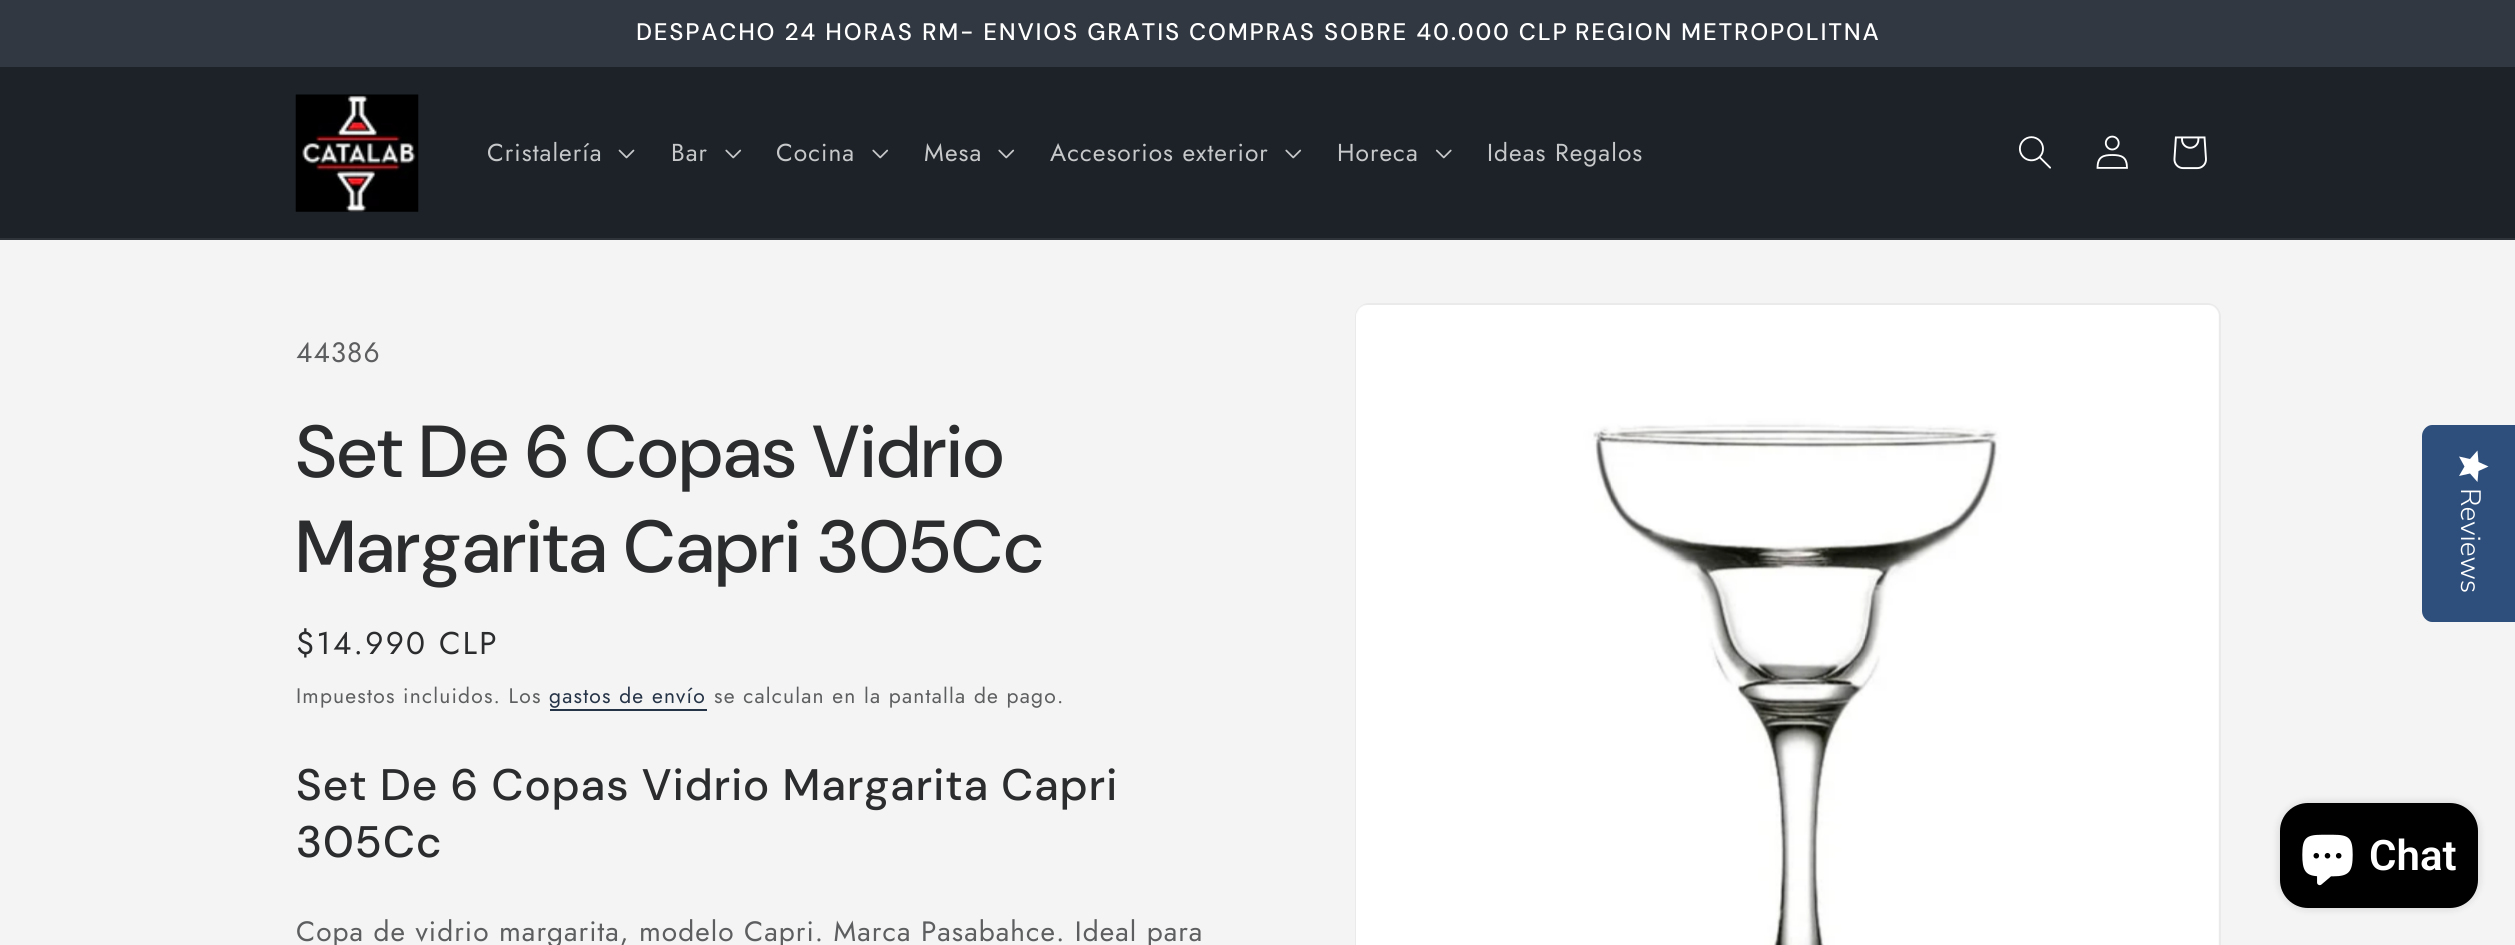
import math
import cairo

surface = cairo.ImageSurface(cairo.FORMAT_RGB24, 2515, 945)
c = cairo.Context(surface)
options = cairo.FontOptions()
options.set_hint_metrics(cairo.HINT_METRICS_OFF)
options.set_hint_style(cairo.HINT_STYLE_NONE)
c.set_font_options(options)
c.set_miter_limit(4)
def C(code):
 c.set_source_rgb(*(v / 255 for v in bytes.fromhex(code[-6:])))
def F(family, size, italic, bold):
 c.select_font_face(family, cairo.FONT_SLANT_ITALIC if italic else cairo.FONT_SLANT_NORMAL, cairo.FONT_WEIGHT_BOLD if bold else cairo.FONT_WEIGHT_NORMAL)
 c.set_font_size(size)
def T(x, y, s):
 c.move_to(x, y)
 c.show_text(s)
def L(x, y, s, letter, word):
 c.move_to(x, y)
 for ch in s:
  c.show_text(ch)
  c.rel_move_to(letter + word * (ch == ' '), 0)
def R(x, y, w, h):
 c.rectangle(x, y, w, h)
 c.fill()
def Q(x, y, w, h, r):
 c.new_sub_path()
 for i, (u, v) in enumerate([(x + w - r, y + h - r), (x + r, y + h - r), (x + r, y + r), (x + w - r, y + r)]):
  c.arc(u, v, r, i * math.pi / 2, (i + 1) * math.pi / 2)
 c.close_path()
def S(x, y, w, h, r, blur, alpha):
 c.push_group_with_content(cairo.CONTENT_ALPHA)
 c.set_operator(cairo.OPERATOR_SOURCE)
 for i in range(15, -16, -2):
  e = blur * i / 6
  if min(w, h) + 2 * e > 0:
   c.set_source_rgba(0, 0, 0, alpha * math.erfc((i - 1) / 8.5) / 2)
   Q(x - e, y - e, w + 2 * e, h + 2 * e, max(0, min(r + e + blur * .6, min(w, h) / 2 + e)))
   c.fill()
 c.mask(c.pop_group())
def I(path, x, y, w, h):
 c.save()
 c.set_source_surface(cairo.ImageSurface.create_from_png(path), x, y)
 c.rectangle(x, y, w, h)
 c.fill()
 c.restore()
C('f4f4f4')
c.paint()
C('323841')
R(0,0,2515,67)
F('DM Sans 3 Medium',23.9,0,0)
C('ffffff')
L(636,40,'DESPACHO 24 HORAS RM- ENVIOS GRATIS COMPRAS SOBRE 40.000 CLP',1.75,.25)
L(1575,40,'REGION METROPOLITNA',1.75,0)
C('1c2228')
R(0,67,2515,171)
C('2e3439')
R(0,238,2515,2)
I('1.png',295,94,124,118)
F('Jost',24.5,0,0)
C('c6c8c9')
L(487,161,'Cristalería',1.05,0)
I('2.png',618,149,17,10)
L(671,161,'Bar',1.05,0)
I('3.png',725,149,17,10)
L(776,161,'Cocina',1.05,0)
I('3.png',872,149,17,10)
L(924,161,'Mesa',1.05,0)
I('3.png',998,149,17,10)
L(1050,161,'Accesorios exterior',1.05,0)
I('3.png',1285,149,17,10)
L(1337,161,'Horeca',1.05,0)
I('4.png',1435,149,17,10)
L(1487,161,'Ideas Regalos',1.05,0)
I('5.png',2019,136,32,33)
I('6.png',2096,135,32,34)
I('7.png',2173,136,34,34)
F('Jost',28,0,0)
C('5d5e5f')
L(296,362,'44386',1.05,0)
F('DM Sans Medium',73.5,0,0)
C('2b2c2d')
L(296,477,'Set De 6 Copas Vidrio',1.1,0)
L(296,572,'Margarita Capri 305Cc',1.1,0)
F('Jost',31.5,0,0)
L(296,654,'$14.990 CLP',2.25,0)
F('Jost',21,0,0)
C('5d5e5f')
L(296,703,'Impuestos incluidos. Los',1.2,0)
C('253347')
L(549,703,'gastos de envío',1.2,0)
R(550,709,157,2)
C('5d5e5f')
L(714,703,'se calculan en la pantalla de pago.',1.2,0)
F('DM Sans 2 Medium',44.1,0,0)
C('2b2c2d')
L(296,800,'Set De 6 Copas Vidrio Margarita Capri',1.1,0)
L(296,857,'305Cc',1.1,0)
F('Jost',28,0,0)
C('5d5e5f')
L(296,941,'Copa de vidrio margarita, modelo Capri. Marca Pasabahce. Ideal para',1.05,0)
Q(1356,304,864,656,13)
C('eaeaea')
c.stroke()
I('8.png',1356,305,863,640)
C('2e4f7c')
c.new_path()
c.move_to(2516,425)
c.line_to(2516,622)
c.line_to(2432,622)
c.curve_to(2427,622,2422,617,2422,611)
c.line_to(2422,436)
c.curve_to(2422,430,2427,425,2432,425)
c.close_path()
c.fill()
gradient = cairo.LinearGradient(2489,451,2489,482)
gradient.add_color_stop_rgba(1,1,1,1,1)
gradient.add_color_stop_rgba(1,0.918,0.918,0.918,1)
c.set_source(gradient)
c.new_path()
c.move_to(2464.5,466.5)
c.line_to(2459,476)
c.line_to(2470,473.5)
c.line_to(2477.5,482)
c.line_to(2478.5,471)
c.line_to(2488.5,466.5)
c.line_to(2478.5,462)
c.line_to(2477.5,450.5)
c.line_to(2470,459)
c.line_to(2459,456.5)
c.close_path()
c.fill()
F('Nunito Sans Light',28,0,0)
C('ffffff')
c.save()
c.translate(2461,488)
c.rotate(90 * math.pi / 180)
T(0,0,'Reviews')
c.restore()
C('000000')
S(2280,803,198,105,28,4.5,.15)
C('000000')
Q(2280,803,198,105,28)
c.fill()
I('9.png',2302,834,51,52)
F('Roboto SemiBold',42,0,0)
C('ffffff')
T(2369,870,'Chat')
surface.write_to_png('o.png')
